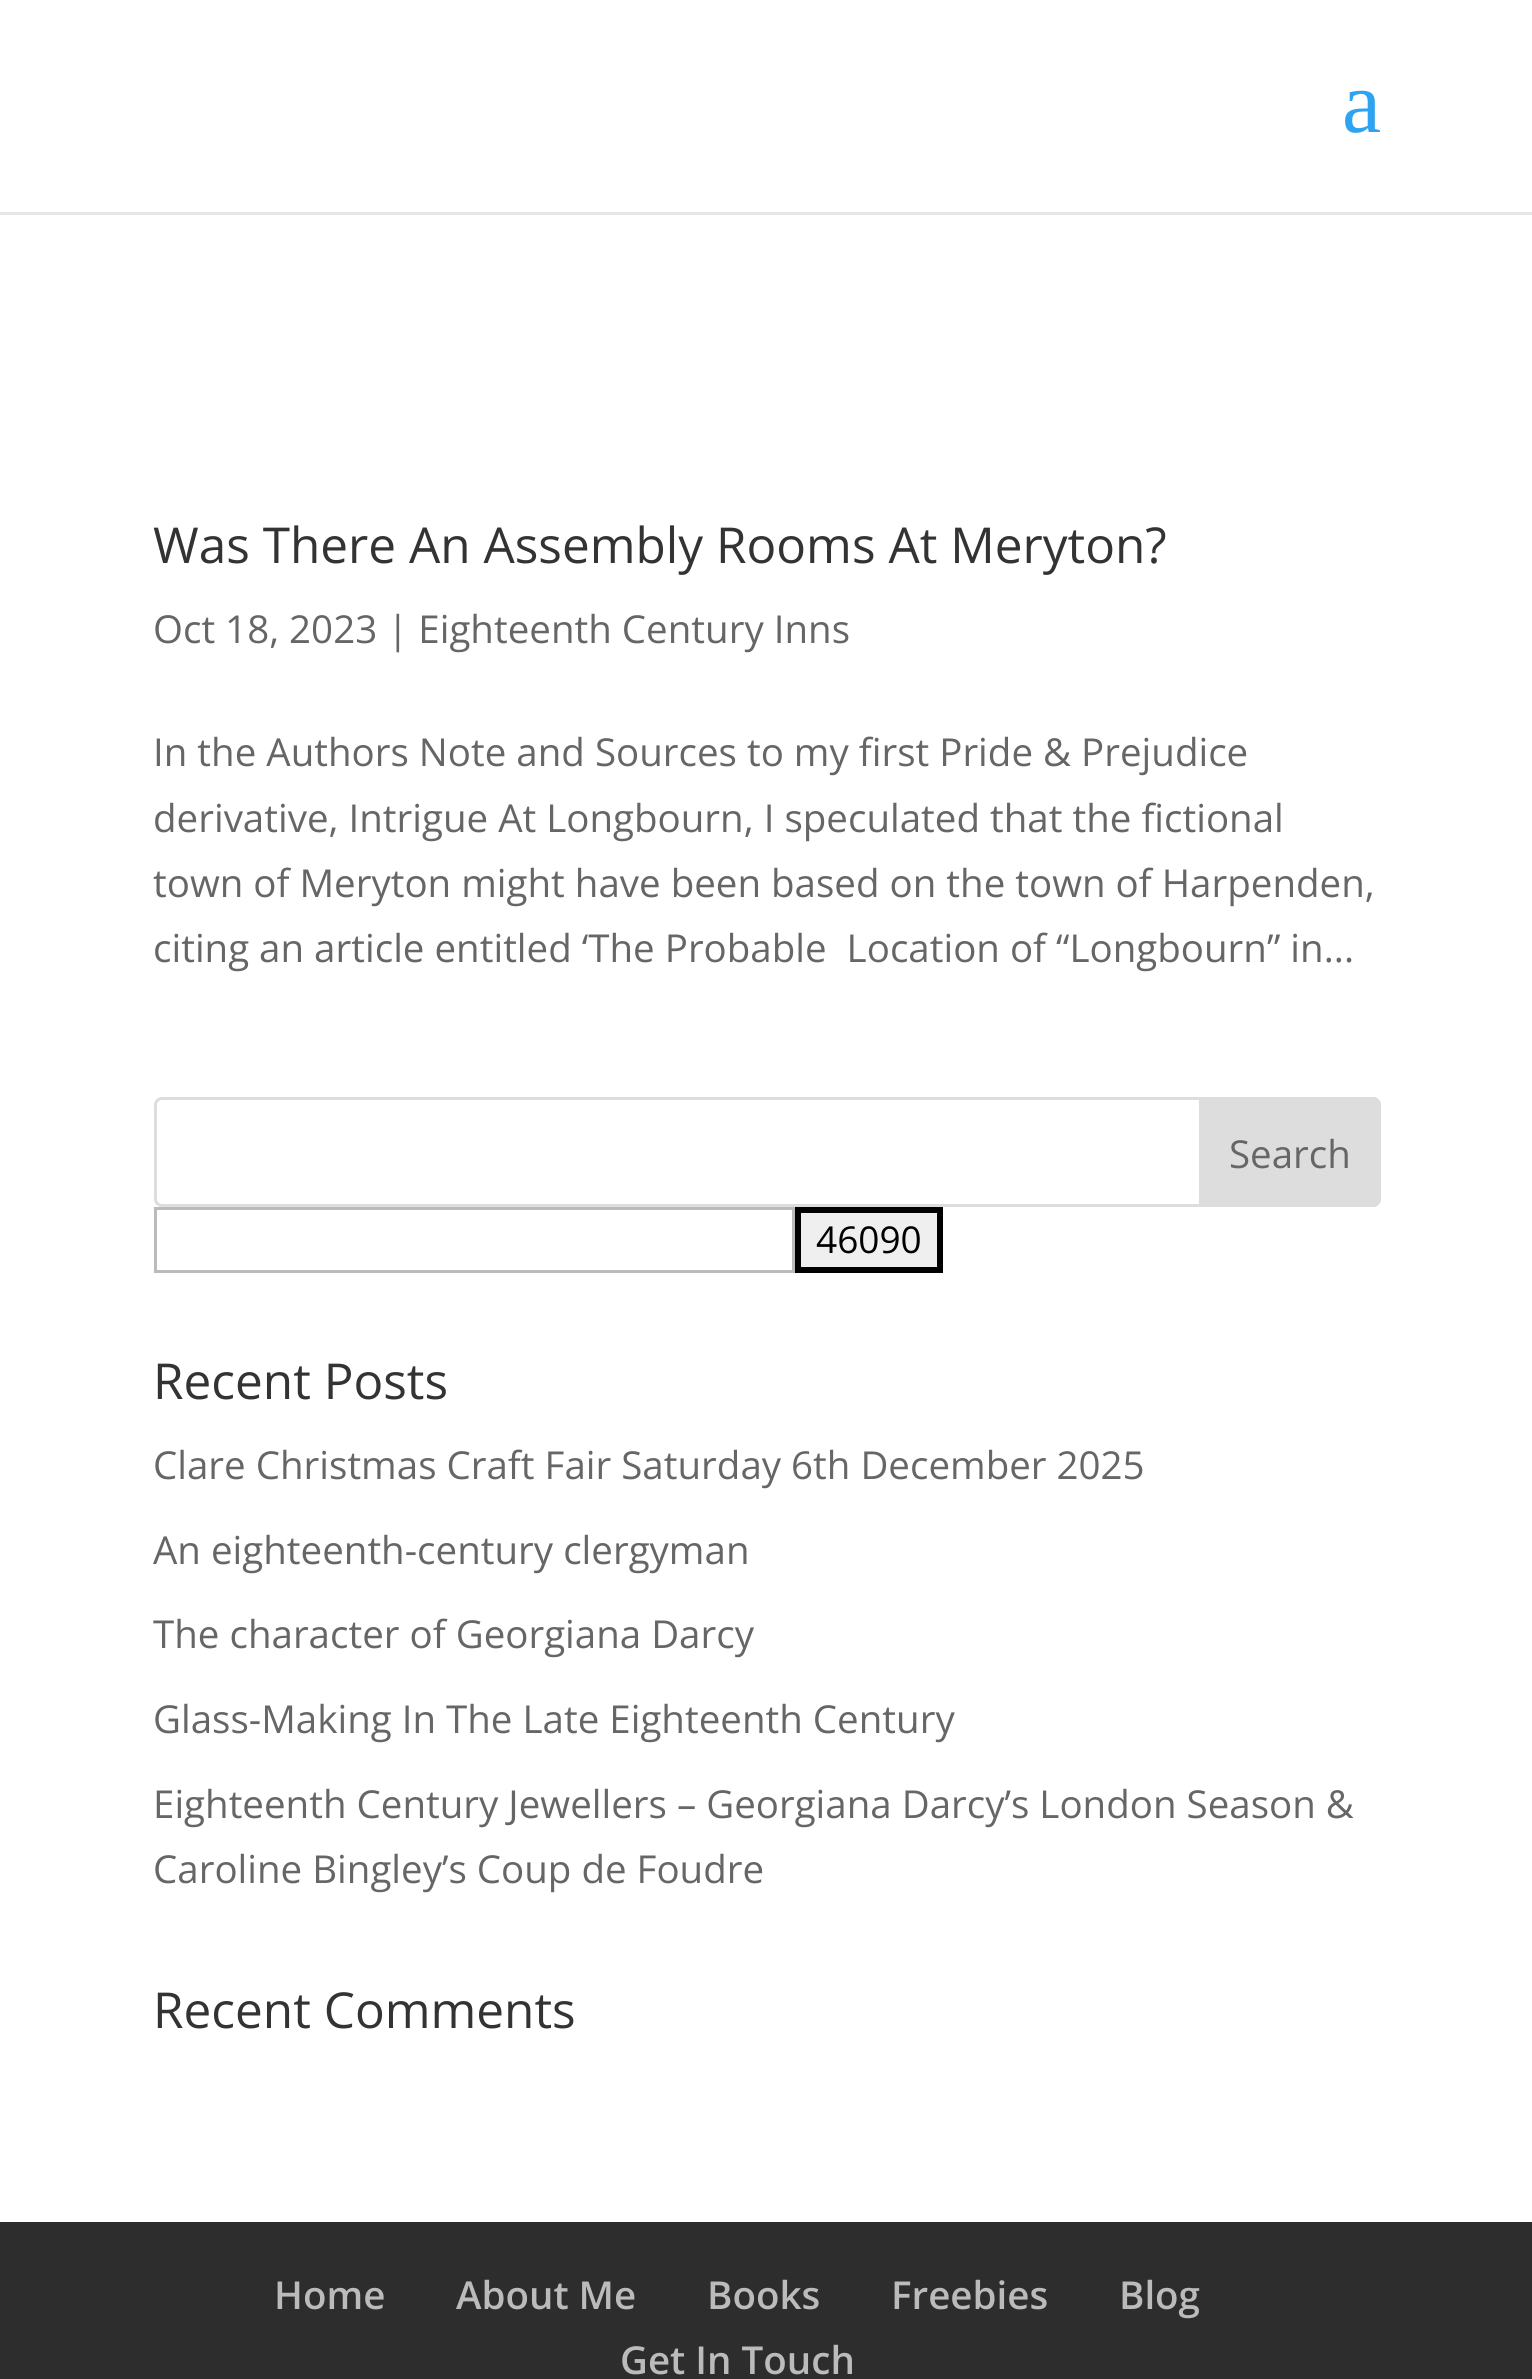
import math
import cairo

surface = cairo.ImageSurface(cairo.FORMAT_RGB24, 1532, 2379)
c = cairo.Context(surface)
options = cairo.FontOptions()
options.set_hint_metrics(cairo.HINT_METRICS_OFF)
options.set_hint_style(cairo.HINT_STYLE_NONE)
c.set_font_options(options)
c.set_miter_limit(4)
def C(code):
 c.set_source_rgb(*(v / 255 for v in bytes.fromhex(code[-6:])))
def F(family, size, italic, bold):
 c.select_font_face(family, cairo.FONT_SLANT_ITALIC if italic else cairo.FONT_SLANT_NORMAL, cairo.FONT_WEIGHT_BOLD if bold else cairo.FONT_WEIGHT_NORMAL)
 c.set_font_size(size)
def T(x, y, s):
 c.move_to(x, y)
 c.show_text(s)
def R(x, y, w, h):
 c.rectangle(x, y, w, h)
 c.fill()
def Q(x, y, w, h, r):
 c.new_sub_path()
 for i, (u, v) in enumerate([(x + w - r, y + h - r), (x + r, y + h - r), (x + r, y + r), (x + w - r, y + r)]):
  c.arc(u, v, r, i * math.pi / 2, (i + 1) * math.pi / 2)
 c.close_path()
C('ffffff')
c.paint()
C('e6e6e6')
c.new_path()
c.move_to(0,212)
c.line_to(0,215)
c.line_to(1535,215)
c.line_to(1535,-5)
c.line_to(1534,-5)
c.line_to(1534,212)
c.close_path()
c.fill()
F('Liberation Serif',88,0,0)
C('2ea3f2')
T(1342,132,'a')
F('Open Sans',49.5,0,0)
C('333333')
T(153,563,'Was There An Assembly Rooms At Meryton?')
F('Open Sans',38.5,0,0)
C('666666')
T(153,643,'Oct 18, 2023 | Eighteenth Century Inns')
T(153,766,'In the Authors Note and Sources to my first Pride & Prejudice')
T(153,832,'derivative, Intrigue At Longbourn, I speculated that the fictional')
T(153,897,'town of Meryton might have been based on the town of Harpenden,')
T(153,962,'citing an article entitled ‘The Probable  Location of “Longbourn” in...')
Q(155.5,1098.5,1224,107,6.5)
C('dddddd')
c.set_line_width(3)
c.stroke()
c.new_path()
c.move_to(1200.5,1098.5)
c.line_to(1373,1098.5)
c.curve_to(1376.5,1098.5,1379.5,1101.5,1379.5,1105)
c.line_to(1379.5,1199)
c.curve_to(1379.5,1202.5,1376.5,1205.5,1373,1205.5)
c.line_to(1200.5,1205.5)
c.close_path()
c.fill_preserve()
c.stroke()
C('666666')
T(1229,1168,'Search')
c.rectangle(155.5,1208.5,638,63)
C('bbbbbb')
c.stroke()
C('efefef')
c.rectangle(798,1210,142,60)
c.fill_preserve()
C('000000')
c.set_line_width(6)
c.stroke()
F('Open Sans',37,0,0)
T(816,1253,'46090')
F('Open Sans',49.5,0,0)
C('333333')
T(153,1399,'Recent Posts')
F('Open Sans',38.5,0,0)
C('666666')
T(153,1479,'Clare Christmas Craft Fair Saturday 6th December 2025')
T(153,1564,'An eighteenth-century clergyman')
T(153,1648,'The character of Georgiana Darcy')
T(153,1733,'Glass-Making In The Late Eighteenth Century')
T(153,1818,'Eighteenth Century Jewellers – Georgiana Darcy’s London Season &')
T(153,1883,'Caroline Bingley’s Coup de Foudre')
F('Open Sans',49.5,0,0)
C('333333')
T(153,2028,'Recent Comments')
C('2d2d2d')
R(0,2222,1532,157)
F('Open Sans SemiBold',38.5,0,0)
C('bbbbbb')
T(274,2309,'Home')
T(456,2309,'About Me')
T(707,2309,'Books')
T(891,2309,'Freebies')
T(1119,2309,'Blog')
T(620,2374,'Get In Touch')
surface.write_to_png('o.png')
